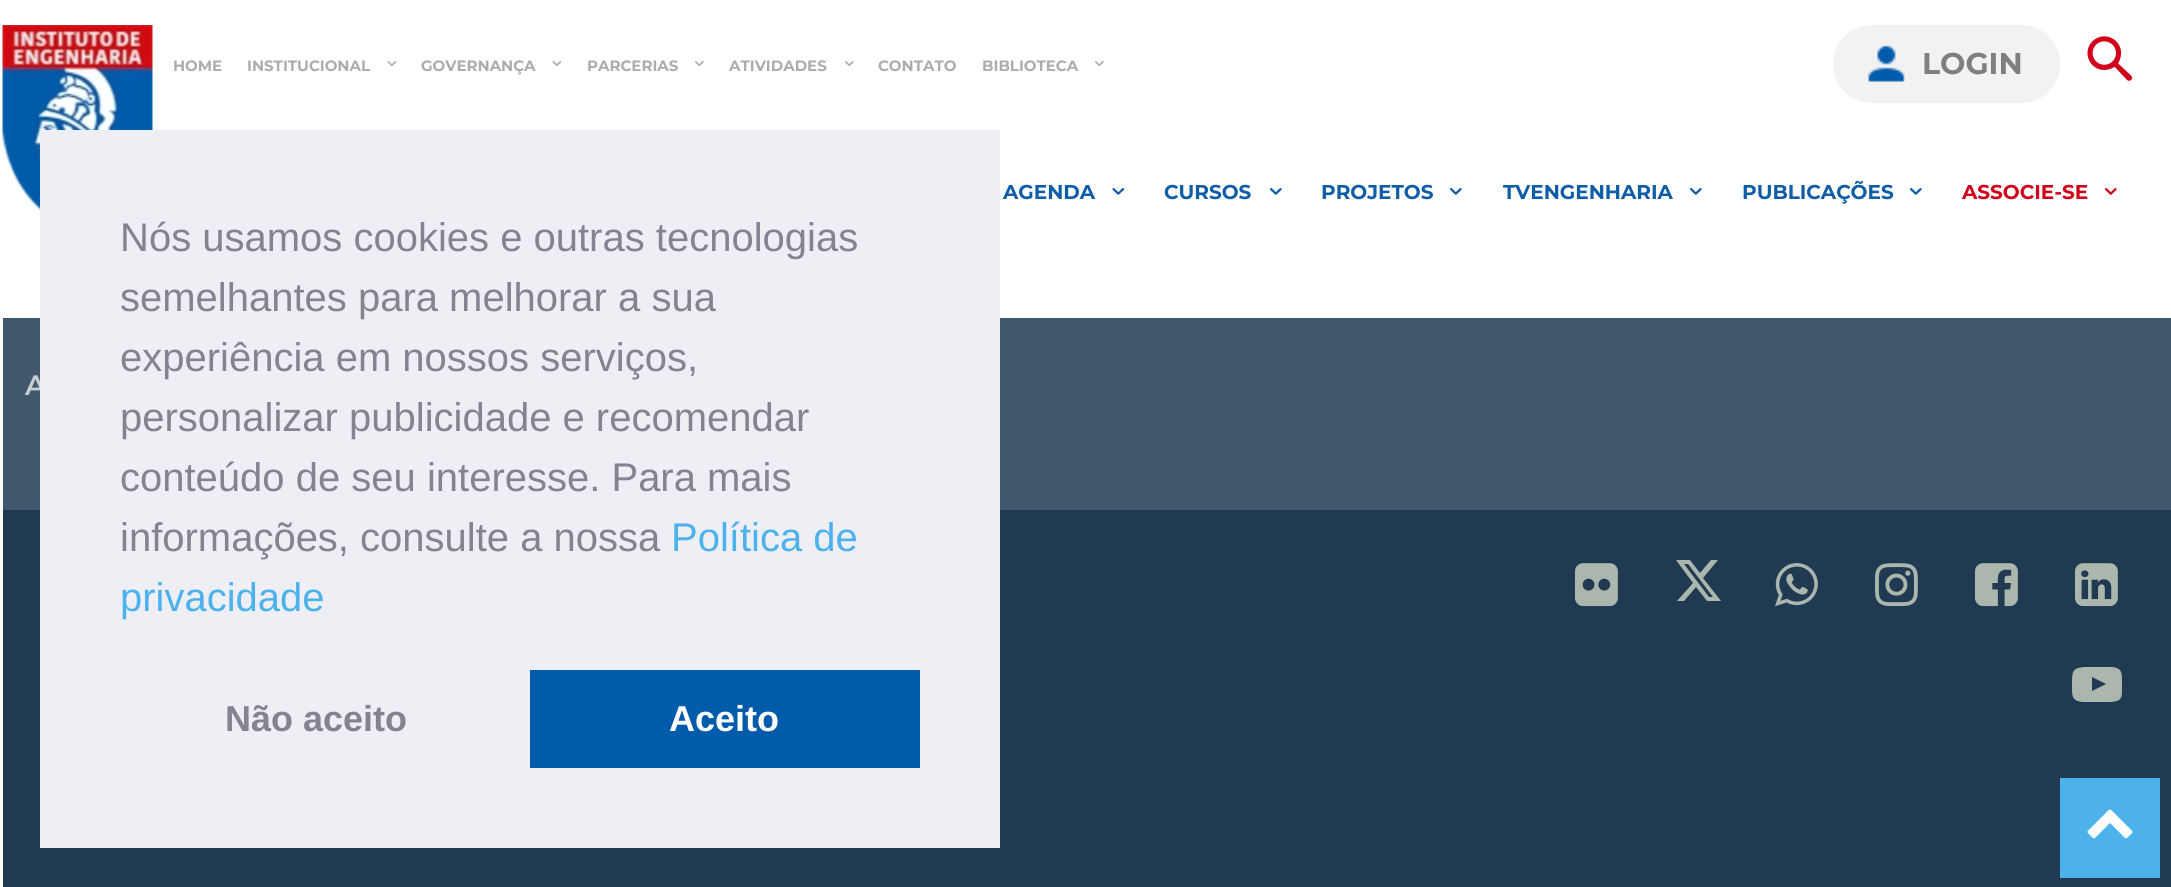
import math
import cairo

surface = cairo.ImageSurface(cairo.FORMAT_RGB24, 2171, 887)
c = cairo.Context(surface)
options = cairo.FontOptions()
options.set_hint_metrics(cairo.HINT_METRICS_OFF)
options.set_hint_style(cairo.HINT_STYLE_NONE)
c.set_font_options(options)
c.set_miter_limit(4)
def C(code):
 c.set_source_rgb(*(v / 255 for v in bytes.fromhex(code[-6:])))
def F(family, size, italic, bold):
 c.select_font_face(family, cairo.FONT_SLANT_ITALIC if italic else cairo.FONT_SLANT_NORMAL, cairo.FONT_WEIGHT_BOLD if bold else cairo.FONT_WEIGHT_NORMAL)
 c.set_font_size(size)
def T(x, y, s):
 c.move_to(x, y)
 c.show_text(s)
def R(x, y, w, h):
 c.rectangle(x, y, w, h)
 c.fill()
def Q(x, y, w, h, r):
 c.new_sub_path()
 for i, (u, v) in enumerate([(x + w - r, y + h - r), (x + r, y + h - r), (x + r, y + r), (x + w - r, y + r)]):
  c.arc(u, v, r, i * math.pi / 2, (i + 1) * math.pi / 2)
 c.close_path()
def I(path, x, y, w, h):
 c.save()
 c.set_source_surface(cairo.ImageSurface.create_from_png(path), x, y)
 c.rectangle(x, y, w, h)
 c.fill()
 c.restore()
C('ffffff')
c.paint()
I('1.png',2,25,151,186)
F('Montserrat',15,0,1)
C('acacac')
T(173,71,'HOME')
T(247,71,'INSTITUCIONAL')
I('2.png',387,61,10,5)
T(421,71,'GOVERNANÇA')
I('2.png',552,61,10,5)
T(587,71,'PARCERIAS')
I('3.png',695,61,9,5)
T(729,71,'ATIVIDADES')
I('3.png',845,61,9,5)
T(878,71,'CONTATO')
T(982,71,'BIBLIOTECA')
I('3.png',1095,61,9,5)
C('f2f2f2')
Q(1833,25,227,78,39)
c.fill()
I('4.png',1868,45,37,37)
F('Montserrat',30,0,1)
C('7f7f7f')
T(1922,74,'LOGIN')
I('5.png',2087,36,46,45)
F('Montserrat',20,0,1)
C('0f5da7')
T(1003,199,'AGENDA')
I('6.png',1112,188,13,7)
T(1164,199,'CURSOS')
I('7.png',1270,188,12,7)
T(1321,199,'PROJETOS')
I('7.png',1450,188,12,7)
T(1503,199,'TVENGENHARIA')
I('7.png',1690,188,12,7)
T(1742,199,'PUBLICAÇÕES')
I('7.png',1910,188,12,7)
C('d0001a')
T(1962,199,'ASSOCIE-SE')
I('8.png',2105,188,12,7)
C('41576c')
R(3,318,2168,192)
F('Montserrat SemiBold',28,0,0)
C('c6cdd3')
T(25,395,'A')
C('203a52')
R(3,510,2168,377)
I('9.png',1575,563,43,44)
C('abb6ac')
c.new_path()
c.move_to(1711,560)
c.line_to(1718,560)
c.line_to(1703,578)
c.line_to(1721,601)
c.line_to(1707,601)
c.line_to(1696,587)
c.line_to(1684,601)
c.line_to(1677,601)
c.line_to(1693,583)
c.line_to(1676,560)
c.line_to(1690,560)
c.line_to(1700,573)
c.close_path()
c.move_to(1709,597)
c.line_to(1713,597)
c.line_to(1688,564)
c.line_to(1684,564)
c.close_path()
c.fill()
I('10.png',1775,563,43,44)
I('11.png',1875,563,43,44)
I('12.png',1975,563,43,44)
I('13.png',2075,563,43,44)
c.new_path()
c.move_to(2092,691)
c.line_to(2106,684)
c.line_to(2092,677)
c.close_path()
c.move_to(2098,667)
c.line_to(2112,667)
c.curve_to(2123,668,2122,674,2122,685)
c.curve_to(2122,697,2123,701,2111,702)
c.line_to(2083,702)
c.curve_to(2071,701,2072,695,2072,685)
c.curve_to(2072,672,2072,668,2084,667)
c.close_path()
c.fill()
C('edeff5')
R(40,130,960,718)
F('Liberation Sans',40,0,0)
C('838391')
T(120,251,'Nós usamos cookies e outras tecnologias')
T(120,311,'semelhantes para melhorar a sua')
T(120,371,'experiência em nossos serviços,')
T(120,431,'personalizar publicidade e recomendar')
T(120,491,'conteúdo de seu interesse. Para mais')
T(120,551,'informações, consulte a nossa')
C('4db2ec')
T(671,551,'Política de')
T(120,611,'privacidade')
F('Liberation Sans',36,0,1)
C('838391')
T(225,731,'Não aceito')
C('015bab')
R(530,670,390,98)
C('ffffff')
T(669,731,'Aceito')
C('4db2ec')
R(2060,778,100,100)
I('14.png',2087,809,46,30)
surface.write_to_png('o.png')
